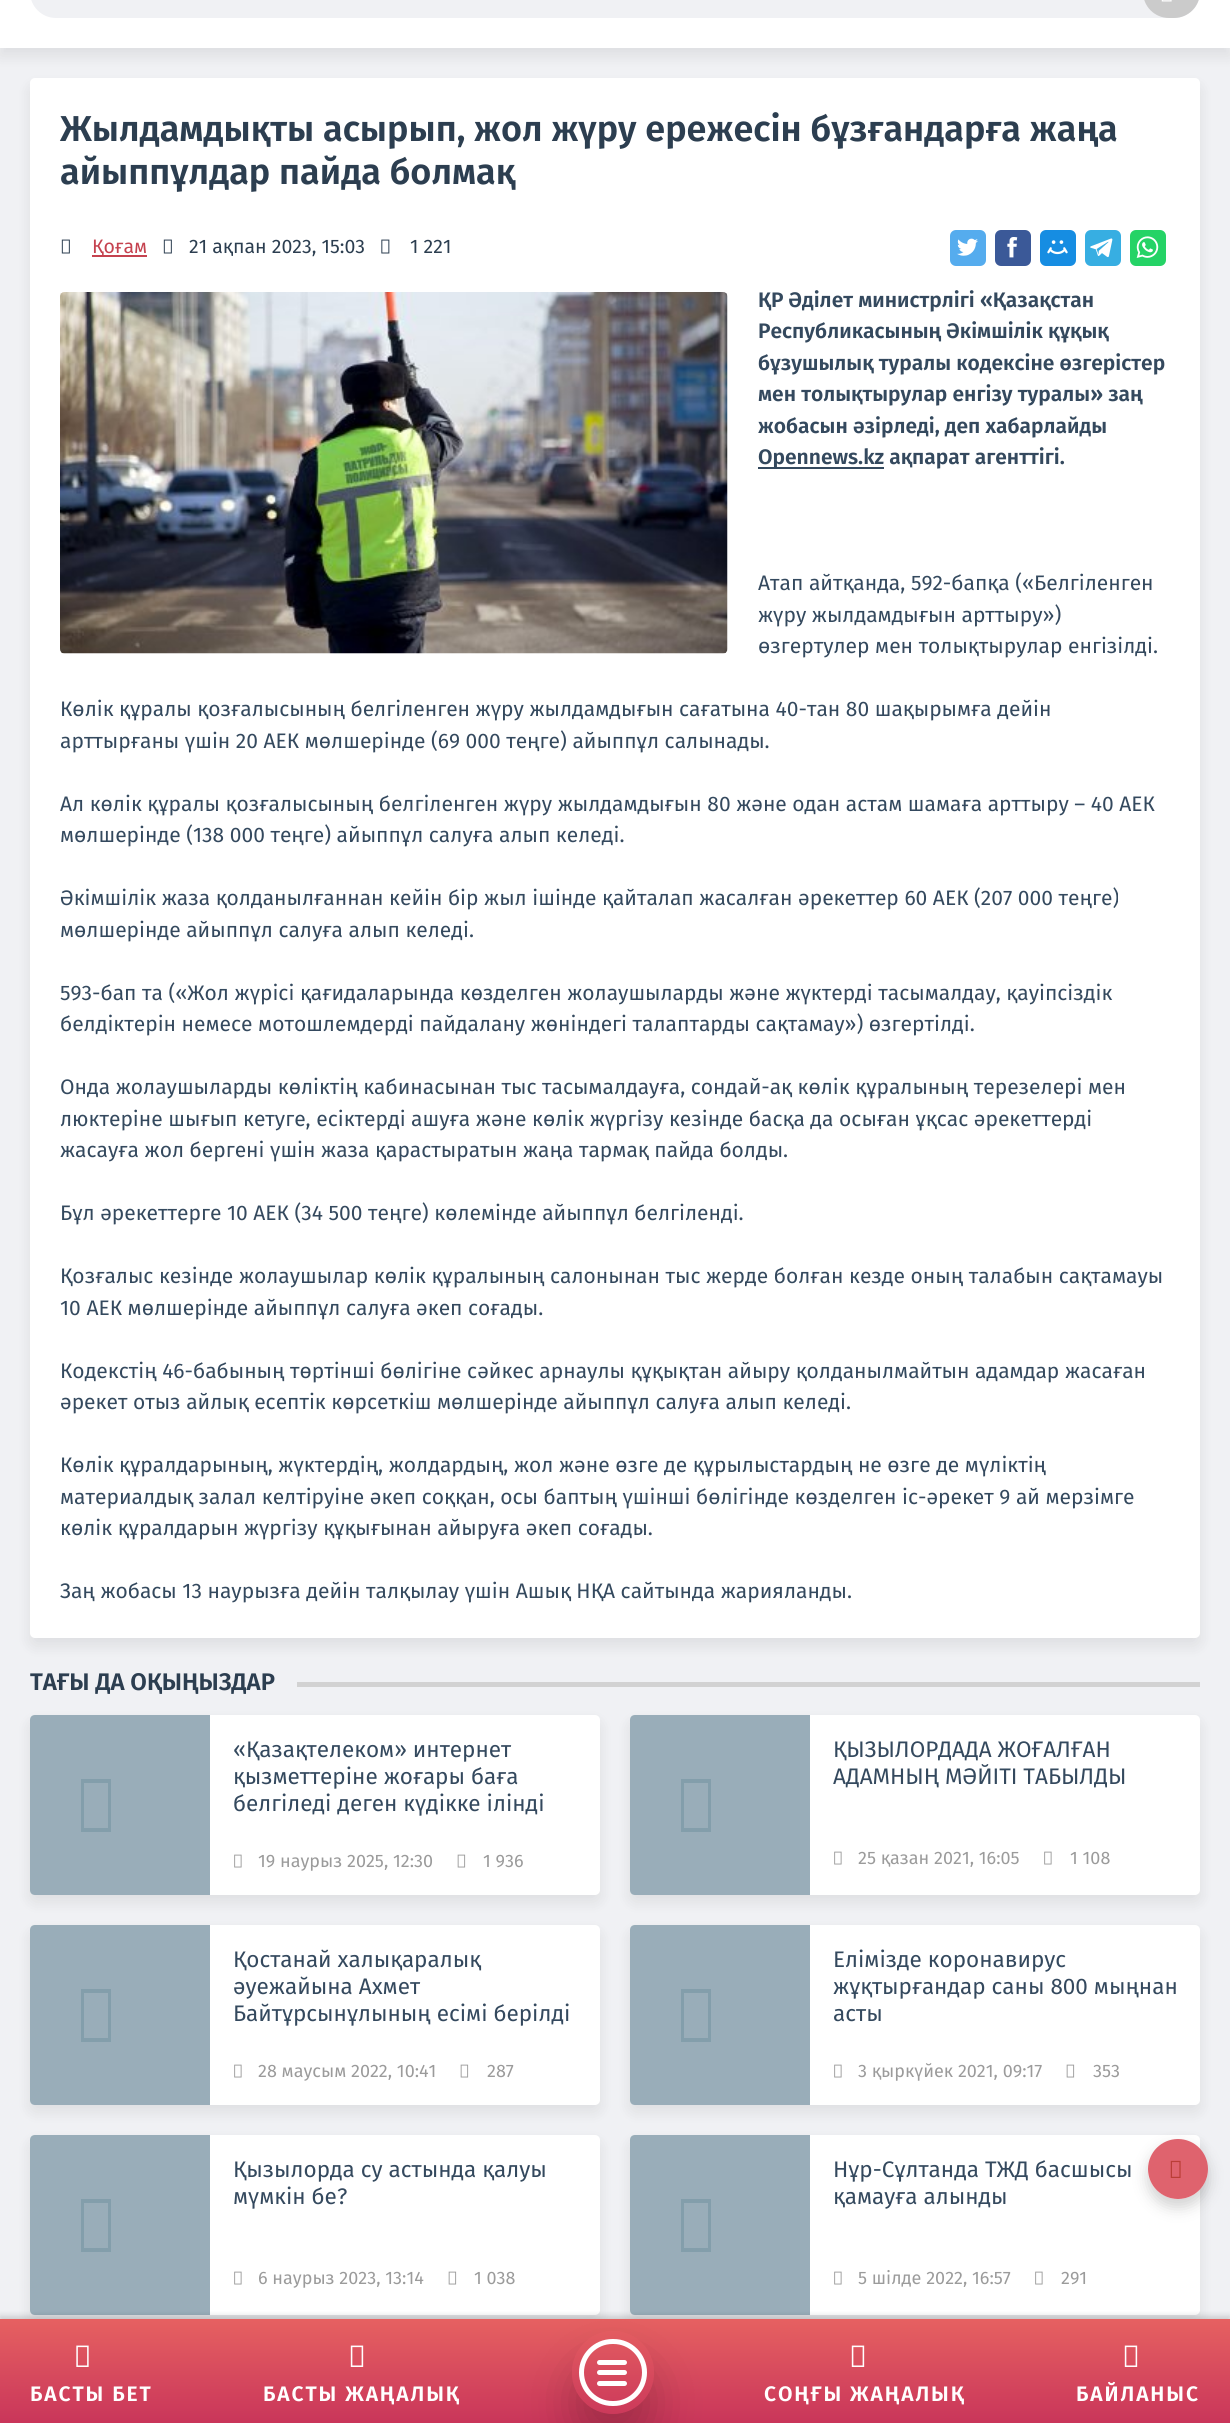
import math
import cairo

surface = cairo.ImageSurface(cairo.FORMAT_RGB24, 1230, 2423)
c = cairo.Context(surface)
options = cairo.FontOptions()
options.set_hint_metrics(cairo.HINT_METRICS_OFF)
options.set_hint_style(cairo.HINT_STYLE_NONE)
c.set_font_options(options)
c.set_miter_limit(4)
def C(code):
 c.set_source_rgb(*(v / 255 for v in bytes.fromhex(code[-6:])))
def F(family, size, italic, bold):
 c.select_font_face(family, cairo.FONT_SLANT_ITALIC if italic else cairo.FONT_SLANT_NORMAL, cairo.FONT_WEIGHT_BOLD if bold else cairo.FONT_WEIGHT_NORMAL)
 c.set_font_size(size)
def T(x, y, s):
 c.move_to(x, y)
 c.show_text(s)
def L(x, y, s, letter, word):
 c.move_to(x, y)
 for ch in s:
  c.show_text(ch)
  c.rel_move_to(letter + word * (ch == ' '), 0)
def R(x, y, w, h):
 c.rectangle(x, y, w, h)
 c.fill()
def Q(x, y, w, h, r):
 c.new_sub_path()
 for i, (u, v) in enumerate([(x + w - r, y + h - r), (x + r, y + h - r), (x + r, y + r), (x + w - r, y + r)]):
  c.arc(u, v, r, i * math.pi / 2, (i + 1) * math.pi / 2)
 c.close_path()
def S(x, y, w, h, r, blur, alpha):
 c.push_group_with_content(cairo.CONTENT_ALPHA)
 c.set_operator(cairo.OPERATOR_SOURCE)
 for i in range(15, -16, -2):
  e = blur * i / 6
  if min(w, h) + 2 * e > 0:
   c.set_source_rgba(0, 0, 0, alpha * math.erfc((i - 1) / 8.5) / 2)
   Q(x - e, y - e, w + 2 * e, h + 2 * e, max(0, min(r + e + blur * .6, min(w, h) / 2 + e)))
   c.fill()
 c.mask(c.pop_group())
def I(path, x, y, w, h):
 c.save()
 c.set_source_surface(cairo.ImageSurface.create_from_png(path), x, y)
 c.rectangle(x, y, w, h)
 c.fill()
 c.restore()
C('f0f1f4')
c.paint()
C('000000')
S(0,-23,1230,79,0,7.5,.08)
C('ffffff')
R(0,0,1230,48)
C('f0f1f4')
Q(30,-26,1170,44,26)
c.fill()
C('cbcbcb')
Q(1143,-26,57,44,26)
c.fill()
I('1.png',1161,0,11,2)
C('000000')
S(30,86,1170,1560,5,7.5,.08)
C('ffffff')
Q(30,78,1170,1560,5)
c.fill()
F('Fira Sans SemiBold',36,0,0)
C('2c3e50')
T(60,141,'Жылдамдықты асырып, жол жүру ережесін бұзғандарға жаңа')
T(60,184,'айыппұлдар пайда болмақ')
I('2.png',61,239,9,15)
C('c5424f')
R(92,255,55,2)
F('Fira Sans',19.5,0,0)
T(92,253,'Қоғам')
I('2.png',163,239,9,15)
C('2c3e50')
T(189,253,'21 ақпан 2023, 15:03')
I('3.png',381,239,9,15)
T(410,253,'1 221')
C('55acee')
Q(950,230,36,36,6)
c.fill()
I('4.png',957,238,21,18)
C('3b5998')
Q(995,230,36,36,6)
c.fill()
I('5.png',1007,237,11,21)
C('168de2')
Q(1040,230,36,36,6)
c.fill()
I('6.png',1047,240,21,15)
C('37aee2')
Q(1085,230,36,36,6)
c.fill()
I('7.png',1090,238,23,20)
C('25d366')
Q(1130,230,36,36,6)
c.fill()
I('8.png',1136,236,23,22)
I('9.png',60,292,668,362)
F('Fira Sans SemiBold',21,0,0)
C('34495e')
T(758,307,'ҚР Әділет министрлігі «Қазақстан')
T(758,338,'Республикасының Әкімшілік құқық')
T(758,370,'бұзушылық туралы кодексіне өзгерістер')
T(758,401,'мен толықтырулар енгізу туралы» заң')
T(758,433,'жобасын әзірледі, деп хабарлайды')
R(758,467,126,2)
T(758,464,'Opennews.kz ақпарат агенттігі.')
F('Fira Sans',21,0,0)
T(758,590,'Атап айтқанда, 592-бапқа («Белгiленген')
T(758,622,'жүру жылдамдығын арттыру»)')
T(758,653,'өзгертулер мен толықтырулар енгізілді.')
T(60,716,'Көлік құралы қозғалысының белгіленген жүру жылдамдығын сағатына 40-тан 80 шақырымға дейін')
T(60,748,'арттырғаны үшін 20 АЕК мөлшерінде (69 000 теңге) айыппұл салынады.')
T(60,811,'Ал көлік құралы қозғалысының белгіленген жүру жылдамдығын 80 және одан астам шамаға арттыру – 40 АЕК')
T(60,842,'мөлшерінде (138 000 теңге) айыппұл салуға алып келеді.')
T(60,905,'Әкімшілік жаза қолданылғаннан кейін бір жыл ішінде қайталап жасалған әрекеттер 60 АЕК (207 000 теңге)')
T(60,937,'мөлшерінде айыппұл салуға алып келеді.')
T(60,1000,'593-бап та («Жол жүрiсi қағидаларында көзделген жолаушыларды және жүктердi тасымалдау, қауiпсiздiк')
T(60,1031,'белдіктерiн немесе мотошлемдердi пайдалану жөніндегі талаптарды сақтамау») өзгертілді.')
T(60,1094,'Онда жолаушыларды көліктің кабинасынан тыс тасымалдауға, сондай-ақ көлік құралының терезелері мен')
T(60,1126,'люктеріне шығып кетуге, есіктерді ашуға және көлік жүргізу кезінде басқа да осыған ұқсас әрекеттерді')
T(60,1157,'жасауға жол бергені үшін жаза қарастыратын жаңа тармақ пайда болды.')
T(60,1220,'Бұл әрекеттерге 10 АЕК (34 500 теңге) көлемінде айыппұл белгіленді.')
T(60,1283,'Қозғалыс кезінде жолаушылар көлік құралының салонынан тыс жерде болған кезде оның талабын сақтамауы')
T(60,1315,'10 АЕК мөлшерінде айыппұл салуға әкеп соғады.')
T(60,1378,'Кодекстің 46-бабының төртінші бөлігіне сәйкес арнаулы құқықтан айыру қолданылмайтын адамдар жасаған')
T(60,1409,'әрекет отыз айлық есептік көрсеткіш мөлшерінде айыппұл салуға алып келеді.')
T(60,1472,'Көлік құралдарының, жүктердің, жолдардың, жол және өзге де құрылыстардың не өзге де мүліктің')
T(60,1504,'материалдық залал келтіруіне әкеп соққан, осы баптың үшінші бөлігінде көзделген іс-әрекет 9 ай мерзімге')
T(60,1535,'көлік құралдарын жүргізу құқығынан айыруға әкеп соғады.')
T(60,1598,'Заң жобасы 13 наурызға дейін талқылау үшін Ашық НҚА сайтында жарияланды.')
F('Fira Sans SemiBold',24,0,0)
C('2c3e50')
T(30,1690,'ТАҒЫ ДА ОҚЫҢЫЗДАР')
C('d2d2d2')
R(297,1682,903,5)
C('000000')
S(30,1722,570,180,5,7.5,.08)
C('ffffff')
Q(30,1715,570,180,5)
c.fill()
C('bdd8e7')
c.new_path()
c.move_to(35,1715)
c.line_to(210,1715)
c.line_to(210,1895)
c.line_to(35,1895)
c.curve_to(32,1895,30,1893,30,1890)
c.line_to(30,1720)
c.curve_to(30,1717,32,1715,35,1715)
c.close_path()
c.fill()
c.set_source_rgba(1,1,1,0.07)
c.new_path()
c.move_to(35,1715)
c.line_to(210,1715)
c.line_to(210,1895)
c.line_to(35,1895)
c.curve_to(32,1895,30,1893,30,1890)
c.line_to(30,1720)
c.curve_to(30,1717,32,1715,35,1715)
c.close_path()
c.fill()
C('a6c7d8')
c.new_path()
c.move_to(81,1832)
c.line_to(81,1779)
c.line_to(111,1779)
c.line_to(111,1832)
c.close_path()
c.move_to(84,1828)
c.line_to(108,1828)
c.line_to(108,1783)
c.line_to(84,1783)
c.close_path()
c.fill()
c.set_source_rgba(0,0,0,0.21)
c.new_path()
c.move_to(35,1715)
c.line_to(210,1715)
c.line_to(210,1895)
c.line_to(35,1895)
c.curve_to(32,1895,30,1893,30,1890)
c.line_to(30,1720)
c.curve_to(30,1717,32,1715,35,1715)
c.close_path()
c.fill()
F('Fira Sans',22.5,0,0)
C('34495e')
T(233,1757,'«Қазақтелеком» интернет')
T(233,1784,'қызметтеріне жоғары баға')
T(233,1811,'белгіледі деген күдікке ілінді')
I('10.png',234,1854,8,14)
F('Fira Sans',18,0,0)
C('9b9b9b')
T(258,1867,'19 наурыз 2025, 12:30')
I('11.png',457,1854,9,14)
T(483,1867,'1 936')
C('000000')
S(630,1722,570,180,5,7.5,.08)
C('ffffff')
Q(630,1715,570,180,5)
c.fill()
C('bdd8e7')
c.new_path()
c.move_to(635,1715)
c.line_to(810,1715)
c.line_to(810,1895)
c.line_to(635,1895)
c.curve_to(632,1895,630,1893,630,1890)
c.line_to(630,1720)
c.curve_to(630,1717,632,1715,635,1715)
c.close_path()
c.fill()
c.set_source_rgba(1,1,1,0.07)
c.new_path()
c.move_to(635,1715)
c.line_to(810,1715)
c.line_to(810,1895)
c.line_to(635,1895)
c.curve_to(632,1895,630,1893,630,1890)
c.line_to(630,1720)
c.curve_to(630,1717,632,1715,635,1715)
c.close_path()
c.fill()
C('a6c7d8')
c.new_path()
c.move_to(681,1832)
c.line_to(681,1779)
c.line_to(711,1779)
c.line_to(711,1832)
c.close_path()
c.move_to(684,1828)
c.line_to(708,1828)
c.line_to(708,1783)
c.line_to(684,1783)
c.close_path()
c.fill()
c.set_source_rgba(0,0,0,0.21)
c.new_path()
c.move_to(635,1715)
c.line_to(810,1715)
c.line_to(810,1895)
c.line_to(635,1895)
c.curve_to(632,1895,630,1893,630,1890)
c.line_to(630,1720)
c.curve_to(630,1717,632,1715,635,1715)
c.close_path()
c.fill()
F('Fira Sans',22.5,0,0)
C('34495e')
T(833,1757,'ҚЫЗЫЛОРДАДА ЖОҒАЛҒАН')
T(833,1784,'АДАМНЫҢ МӘЙІТІ ТАБЫЛДЫ')
I('10.png',834,1851,8,14)
F('Fira Sans',18,0,0)
C('9b9b9b')
T(858,1864,'25 қазан 2021, 16:05')
I('10.png',1044,1851,8,14)
T(1070,1864,'1 108')
C('000000')
S(30,1932,570,180,5,7.5,.08)
C('ffffff')
Q(30,1925,570,180,5)
c.fill()
C('bdd8e7')
c.new_path()
c.move_to(35,1925)
c.line_to(210,1925)
c.line_to(210,2105)
c.line_to(35,2105)
c.curve_to(32,2105,30,2103,30,2100)
c.line_to(30,1930)
c.curve_to(30,1927,32,1925,35,1925)
c.close_path()
c.fill()
c.set_source_rgba(1,1,1,0.07)
c.new_path()
c.move_to(35,1925)
c.line_to(210,1925)
c.line_to(210,2105)
c.line_to(35,2105)
c.curve_to(32,2105,30,2103,30,2100)
c.line_to(30,1930)
c.curve_to(30,1927,32,1925,35,1925)
c.close_path()
c.fill()
C('a6c7d8')
c.new_path()
c.move_to(81,2042)
c.line_to(81,1989)
c.line_to(111,1989)
c.line_to(111,2042)
c.close_path()
c.move_to(84,2038)
c.line_to(108,2038)
c.line_to(108,1993)
c.line_to(84,1993)
c.close_path()
c.fill()
c.set_source_rgba(0,0,0,0.21)
c.new_path()
c.move_to(35,1925)
c.line_to(210,1925)
c.line_to(210,2105)
c.line_to(35,2105)
c.curve_to(32,2105,30,2103,30,2100)
c.line_to(30,1930)
c.curve_to(30,1927,32,1925,35,1925)
c.close_path()
c.fill()
F('Fira Sans',22.5,0,0)
C('34495e')
T(233,1967,'Қостанай халықаралық')
T(233,1994,'әуежайына Ахмет')
T(233,2021,'Байтұрсынұлының есімі берілді')
I('10.png',234,2064,8,14)
F('Fira Sans',18,0,0)
C('9b9b9b')
T(258,2077,'28 маусым 2022, 10:41')
I('11.png',460,2064,9,14)
T(487,2077,'287')
C('000000')
S(630,1932,570,180,5,7.5,.08)
C('ffffff')
Q(630,1925,570,180,5)
c.fill()
C('bdd8e7')
c.new_path()
c.move_to(635,1925)
c.line_to(810,1925)
c.line_to(810,2105)
c.line_to(635,2105)
c.curve_to(632,2105,630,2103,630,2100)
c.line_to(630,1930)
c.curve_to(630,1927,632,1925,635,1925)
c.close_path()
c.fill()
c.set_source_rgba(1,1,1,0.07)
c.new_path()
c.move_to(635,1925)
c.line_to(810,1925)
c.line_to(810,2105)
c.line_to(635,2105)
c.curve_to(632,2105,630,2103,630,2100)
c.line_to(630,1930)
c.curve_to(630,1927,632,1925,635,1925)
c.close_path()
c.fill()
C('a6c7d8')
c.new_path()
c.move_to(681,2042)
c.line_to(681,1989)
c.line_to(711,1989)
c.line_to(711,2042)
c.close_path()
c.move_to(684,2038)
c.line_to(708,2038)
c.line_to(708,1993)
c.line_to(684,1993)
c.close_path()
c.fill()
c.set_source_rgba(0,0,0,0.21)
c.new_path()
c.move_to(635,1925)
c.line_to(810,1925)
c.line_to(810,2105)
c.line_to(635,2105)
c.curve_to(632,2105,630,2103,630,2100)
c.line_to(630,1930)
c.curve_to(630,1927,632,1925,635,1925)
c.close_path()
c.fill()
F('Fira Sans',22.5,0,0)
C('34495e')
T(833,1967,'Елімізде коронавирус')
T(833,1994,'жұқтырғандар саны 800 мыңнан')
T(833,2021,'асты')
I('10.png',834,2064,8,14)
F('Fira Sans',18,0,0)
C('9b9b9b')
T(858,2077,'3 қыркүйек 2021, 09:17')
I('11.png',1066,2064,9,14)
T(1093,2077,'353')
C('000000')
S(30,2142,570,180,5,7.5,.08)
C('ffffff')
Q(30,2135,570,180,5)
c.fill()
C('bdd8e7')
c.new_path()
c.move_to(35,2135)
c.line_to(210,2135)
c.line_to(210,2315)
c.line_to(35,2315)
c.curve_to(32,2315,30,2313,30,2310)
c.line_to(30,2140)
c.curve_to(30,2137,32,2135,35,2135)
c.close_path()
c.fill()
c.set_source_rgba(1,1,1,0.07)
c.new_path()
c.move_to(35,2135)
c.line_to(210,2135)
c.line_to(210,2315)
c.line_to(35,2315)
c.curve_to(32,2315,30,2313,30,2310)
c.line_to(30,2140)
c.curve_to(30,2137,32,2135,35,2135)
c.close_path()
c.fill()
C('a6c7d8')
c.new_path()
c.move_to(81,2252)
c.line_to(81,2199)
c.line_to(111,2199)
c.line_to(111,2252)
c.close_path()
c.move_to(84,2248)
c.line_to(108,2248)
c.line_to(108,2203)
c.line_to(84,2203)
c.close_path()
c.fill()
c.set_source_rgba(0,0,0,0.21)
c.new_path()
c.move_to(35,2135)
c.line_to(210,2135)
c.line_to(210,2315)
c.line_to(35,2315)
c.curve_to(32,2315,30,2313,30,2310)
c.line_to(30,2140)
c.curve_to(30,2137,32,2135,35,2135)
c.close_path()
c.fill()
F('Fira Sans',22.5,0,0)
C('34495e')
T(233,2177,'Қызылорда су астында қалуы')
T(233,2204,'мүмкін бе?')
I('10.png',234,2271,8,14)
F('Fira Sans',18,0,0)
C('9b9b9b')
T(258,2284,'6 наурыз 2023, 13:14')
I('11.png',448,2271,9,14)
T(474,2284,'1 038')
C('000000')
S(630,2142,570,180,5,7.5,.08)
C('ffffff')
Q(630,2135,570,180,5)
c.fill()
C('bdd8e7')
c.new_path()
c.move_to(635,2135)
c.line_to(810,2135)
c.line_to(810,2315)
c.line_to(635,2315)
c.curve_to(632,2315,630,2313,630,2310)
c.line_to(630,2140)
c.curve_to(630,2137,632,2135,635,2135)
c.close_path()
c.fill()
c.set_source_rgba(1,1,1,0.07)
c.new_path()
c.move_to(635,2135)
c.line_to(810,2135)
c.line_to(810,2315)
c.line_to(635,2315)
c.curve_to(632,2315,630,2313,630,2310)
c.line_to(630,2140)
c.curve_to(630,2137,632,2135,635,2135)
c.close_path()
c.fill()
C('a6c7d8')
c.new_path()
c.move_to(681,2252)
c.line_to(681,2199)
c.line_to(711,2199)
c.line_to(711,2252)
c.close_path()
c.move_to(684,2248)
c.line_to(708,2248)
c.line_to(708,2203)
c.line_to(684,2203)
c.close_path()
c.fill()
c.set_source_rgba(0,0,0,0.21)
c.new_path()
c.move_to(635,2135)
c.line_to(810,2135)
c.line_to(810,2315)
c.line_to(635,2315)
c.curve_to(632,2315,630,2313,630,2310)
c.line_to(630,2140)
c.curve_to(630,2137,632,2135,635,2135)
c.close_path()
c.fill()
F('Fira Sans',22.5,0,0)
C('34495e')
T(833,2177,'Нұр-Сұлтанда ТЖД басшысы')
T(833,2204,'қамауға алынды')
I('10.png',834,2271,8,14)
F('Fira Sans',18,0,0)
C('9b9b9b')
T(858,2284,'5 шілде 2022, 16:57')
I('10.png',1035,2271,8,14)
T(1061,2284,'291')
C('000000')
S(0,2316,1230,105,0,3,.16)
gradient = cairo.LinearGradient(615,2319,615,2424)
gradient.add_color_stop_rgba(0,0.902,0.38,0.38,1)
gradient.add_color_stop_rgba(1,0.788,0.208,0.353,1)
c.set_source(gradient)
R(0,2319,1230,104)
I('12.png',76,2345,13,22)
F('Fira Sans SemiBold',21,0,0)
C('ffffff')
L(30,2401,'БАСТЫ БЕТ',1.9,0)
I('13.png',350,2345,14,22)
L(263,2401,'БАСТЫ ЖАҢАЛЫҚ',1.9,0)
c.save()
c.set_fill_rule(cairo.FILL_RULE_EVEN_ODD)
c.new_path()
c.move_to(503,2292)
c.line_to(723,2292)
c.line_to(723,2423)
c.line_to(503,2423)
c.close_path()
c.move_to(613,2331)
c.curve_to(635.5,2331,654,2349.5,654,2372)
c.line_to(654,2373)
c.curve_to(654,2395.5,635.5,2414,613,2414)
c.curve_to(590.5,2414,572,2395.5,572,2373)
c.line_to(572,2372)
c.curve_to(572,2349.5,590.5,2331,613,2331)
c.close_path()
c.clip()
C('000000')
S(572,2361,82,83,41,22.5,.2)
c.restore()
Q(581.5,2341.5,63,62,31)
c.set_line_width(5)
c.stroke()
Q(597,2370,30,5,2.5)
c.fill()
Q(597,2360,30,5,2.5)
c.fill()
Q(597,2381,30,5,2.5)
c.fill()
I('13.png',851,2345,14,22)
L(764,2401,'СОҢҒЫ ЖАҢАЛЫҚ',1.9,0)
I('13.png',1124,2345,14,22)
L(1076,2401,'БАЙЛАНЫС',1.9,0)
c.save()
c.set_fill_rule(cairo.FILL_RULE_EVEN_ODD)
c.new_path()
c.move_to(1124,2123)
c.line_to(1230,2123)
c.line_to(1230,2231)
c.line_to(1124,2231)
c.close_path()
c.move_to(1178,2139)
c.curve_to(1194.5,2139,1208,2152.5,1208,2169)
c.curve_to(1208,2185.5,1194.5,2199,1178,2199)
c.curve_to(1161.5,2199,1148,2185.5,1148,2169)
c.curve_to(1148,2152.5,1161.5,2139,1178,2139)
c.close_path()
c.clip()
C('000000')
S(1148,2147,60,60,30,7.5,.18)
c.restore()
c.set_source_rgba(0.863,0.322,0.373,0.9)
c.arc(1178,2169,30,0,2 * math.pi)
c.fill()
I('14.png',1170,2160,11,18)
surface.write_to_png('o.png')
